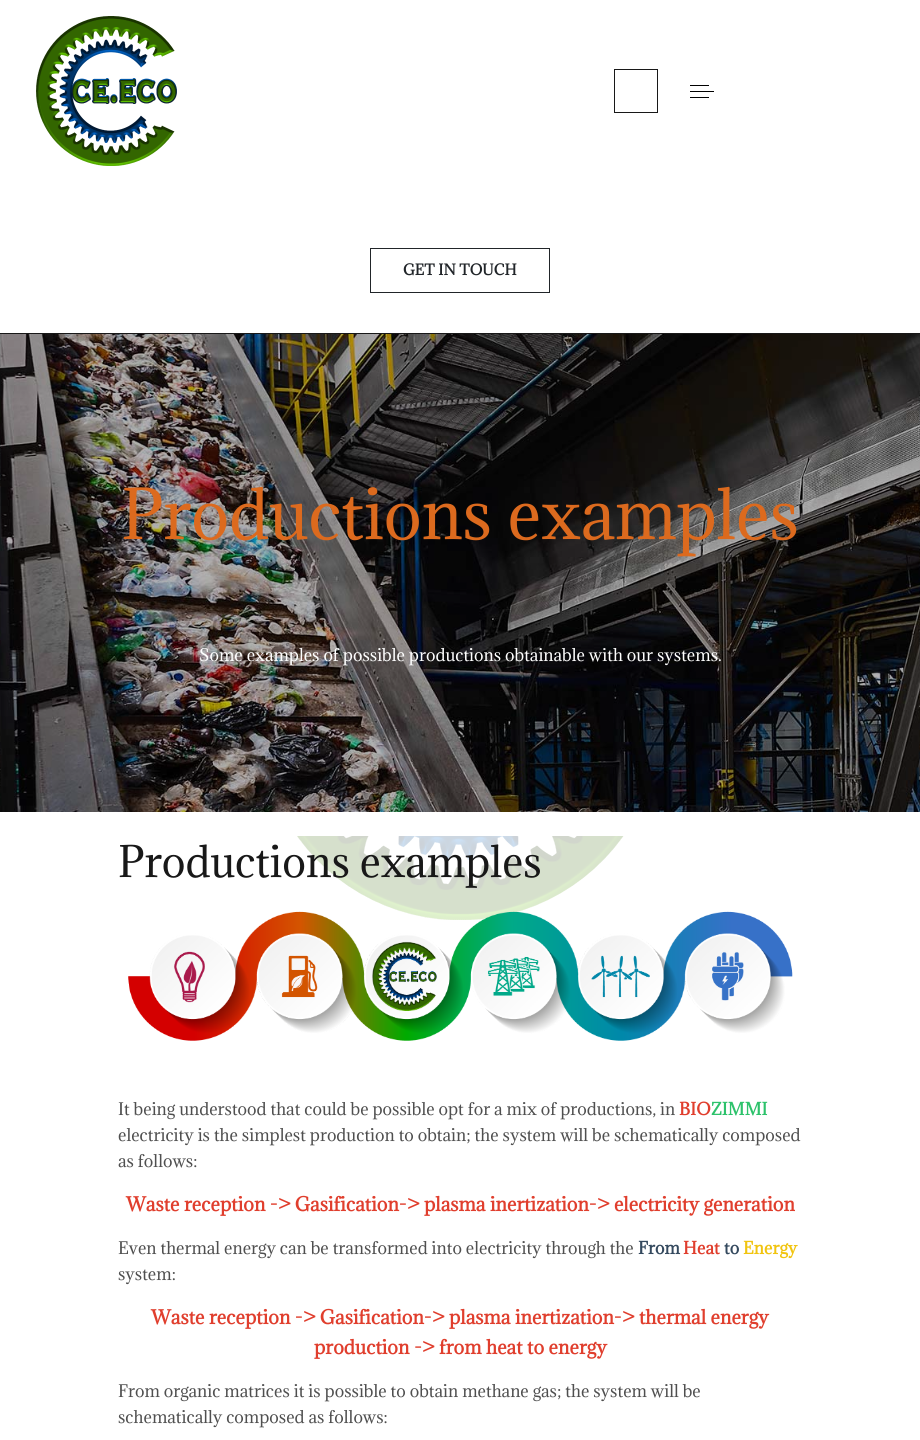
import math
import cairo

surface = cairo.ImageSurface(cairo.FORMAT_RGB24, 920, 1440)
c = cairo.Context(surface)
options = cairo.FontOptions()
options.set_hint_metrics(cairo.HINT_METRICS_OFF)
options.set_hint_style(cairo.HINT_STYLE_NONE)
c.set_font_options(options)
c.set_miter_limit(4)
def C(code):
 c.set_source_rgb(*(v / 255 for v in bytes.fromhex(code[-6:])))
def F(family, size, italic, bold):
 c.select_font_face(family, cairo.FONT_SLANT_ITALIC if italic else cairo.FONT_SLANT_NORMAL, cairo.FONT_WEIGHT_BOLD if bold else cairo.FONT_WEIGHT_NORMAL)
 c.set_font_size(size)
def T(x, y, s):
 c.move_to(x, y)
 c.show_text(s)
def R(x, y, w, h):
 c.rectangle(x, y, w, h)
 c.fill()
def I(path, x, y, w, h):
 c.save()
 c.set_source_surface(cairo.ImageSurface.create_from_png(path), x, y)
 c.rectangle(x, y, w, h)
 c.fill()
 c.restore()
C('ffffff')
c.paint()
I('1.png',297,836,327,84)
C('181818')
R(0,333,920,1)
I('2.png',36,16,141,150)
c.rectangle(614.5,69.5,43,43)
c.set_line_width(1)
c.stroke()
C('000000')
R(690,91,24,1)
R(690,85,19,1)
R(690,97,19,1)
c.rectangle(370.5,248.5,179,44)
C('212529')
c.stroke()
F('Adamina',14,0,1)
T(403,275,'GET IN TOUCH')
I('3.png',0,334,920,478)
F('Adamina',64,0,0)
C('dc6a1e')
T(121,539,'Productions examples')
F('Adamina',16,0,0)
C('ffffff')
T(199,661,'Some examples of possible productions obtainable with our systems.')
F('Adamina',40,0,0)
C('181818')
T(118,877,'Productions examples')
I('4.png',128,911,665,130)
F('Adamina',16,0,0)
C('4f4f4f')
T(118,1115,'It being understood that could be possible opt for a mix of productions, in')
F('Adamina',16,0,1)
C('e03e2d')
T(679,1115,'BIO')
C('2dc26b')
T(711,1115,'ZIMMI')
F('Adamina',16,0,0)
C('4f4f4f')
T(118,1141,'electricity is the simplest production to obtain; the system will be schematically composed')
T(118,1167,'as follows:')
F('Adamina',18,0,1)
C('e03e2d')
T(126,1211,'Waste reception -> Gasification-> plasma inertization-> electricity generation')
F('Adamina',16,0,0)
C('4f4f4f')
T(118,1254,'Even thermal energy can be transformed into electricity through the')
F('Adamina',16,0,1)
C('34495e')
T(638,1254,'From')
C('e03e2d')
T(683,1254,'Heat')
C('34495e')
T(724,1254,'to')
C('f1c40f')
T(743,1254,'Energy')
F('Adamina',16,0,0)
C('4f4f4f')
T(118,1280,'system:')
F('Adamina',18,0,1)
C('e03e2d')
T(151,1324,'Waste reception -> Gasification-> plasma inertization-> thermal energy')
T(314,1354,'production -> from heat to energy')
F('Adamina',16,0,0)
C('4f4f4f')
T(118,1397,'From organic matrices it is possible to obtain methane gas; the system will be')
T(118,1423,'schematically composed as follows:')
surface.write_to_png('o.png')
